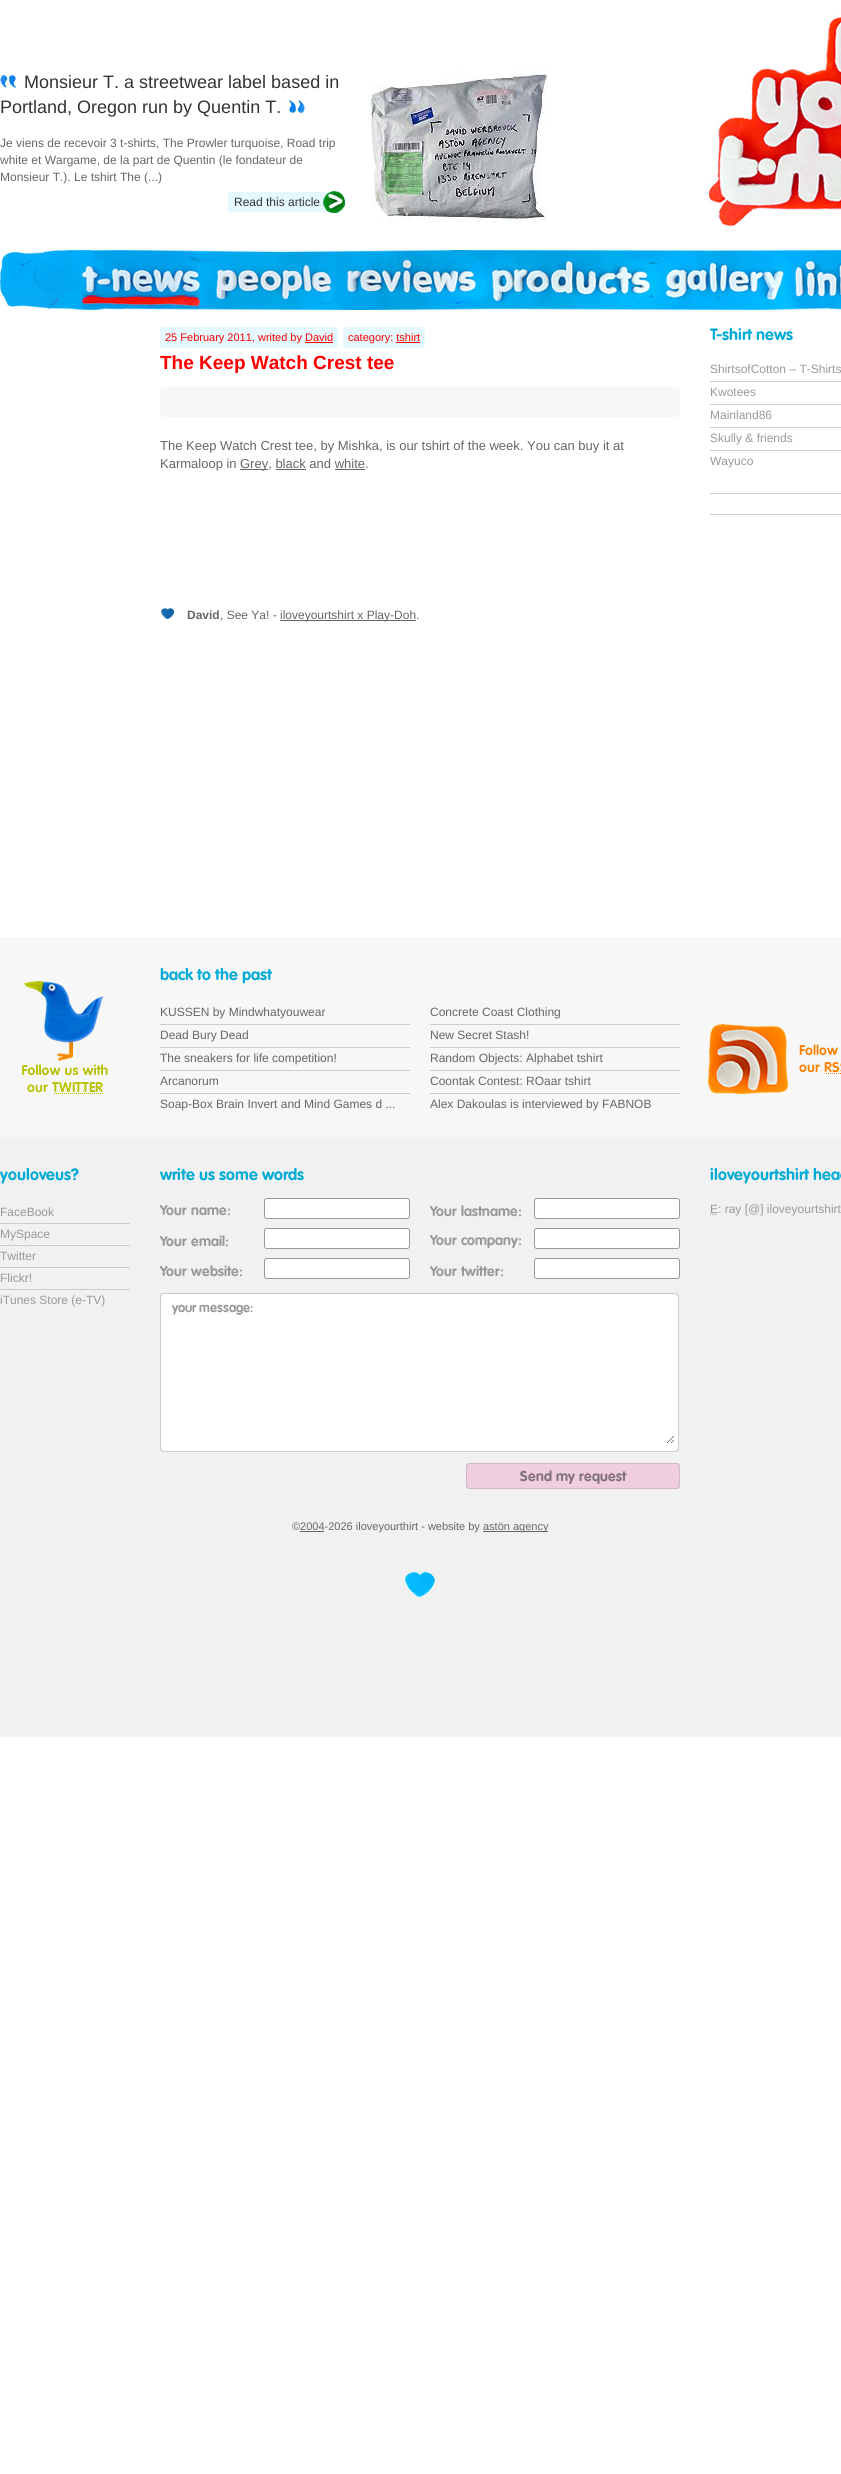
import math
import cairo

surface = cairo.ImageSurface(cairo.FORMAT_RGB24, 841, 2474)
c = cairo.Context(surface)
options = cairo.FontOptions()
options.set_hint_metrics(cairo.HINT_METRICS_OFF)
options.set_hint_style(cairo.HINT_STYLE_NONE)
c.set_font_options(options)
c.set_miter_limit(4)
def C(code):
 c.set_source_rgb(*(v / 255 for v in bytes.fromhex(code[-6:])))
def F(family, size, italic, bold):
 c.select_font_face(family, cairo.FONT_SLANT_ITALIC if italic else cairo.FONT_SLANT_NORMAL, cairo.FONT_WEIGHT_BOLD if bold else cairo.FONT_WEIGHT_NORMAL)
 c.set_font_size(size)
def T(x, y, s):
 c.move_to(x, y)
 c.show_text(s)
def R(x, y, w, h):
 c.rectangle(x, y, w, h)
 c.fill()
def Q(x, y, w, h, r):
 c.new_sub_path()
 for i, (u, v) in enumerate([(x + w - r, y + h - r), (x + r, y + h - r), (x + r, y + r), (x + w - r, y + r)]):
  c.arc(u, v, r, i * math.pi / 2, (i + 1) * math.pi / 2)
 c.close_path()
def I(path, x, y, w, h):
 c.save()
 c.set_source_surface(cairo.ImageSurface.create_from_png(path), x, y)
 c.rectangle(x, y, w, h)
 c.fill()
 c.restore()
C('ffffff')
c.paint()
I('1.png',0,75,16,13)
F('Liberation Sans',18,0,0)
C('333333')
T(24,88,'Monsieur T. a streetwear label based in')
T(0,113,'Portland, Oregon run by Quentin T.')
I('2.png',286,100,19,13)
I('3.png',369,70,178,152)
I('4.png',706,15,135,211)
F('Liberation Sans',12,0,0)
C('666666')
T(0,147,'Je viens de recevoir 3 t-shirts, The Prowler turquoise, Road trip')
T(0,164,'white et Wargame, de la part de Quentin (le fondateur de')
T(0,181,'Monsieur T.). Le tshirt The (...)')
I('5.png',228,191,117,22)
C('333333')
T(234,206,'Read this article')
I('6.png',0,250,795,60)
I('7.png',82,250,118,60)
I('8.png',216,251,115,58)
I('9.png',347,250,129,60)
I('10.png',492,250,158,60)
I('11.png',666,250,118,60)
I('12.png',795,250,46,60)
C('e5f8fd')
Q(160,327,178,21,3)
c.fill()
F('Liberation Sans',11,0,0)
C('ff0000')
T(165,341,'25 February 2011, writed by David')
R(305,342,28,1)
C('e5f8fd')
Q(343,327,82,21,3)
c.fill()
C('ff0000')
T(348,341,'category: tshirt')
R(396,342,24,1)
F('Liberation Sans',19,0,1)
T(160,369,'The Keep Watch Crest tee')
C('f7f7f7')
Q(160,387,520,30,4)
c.fill()
F('Liberation Sans',13,0,0)
C('666666')
T(160,450,'The Keep Watch Crest tee, by Mishka, is our tshirt of the week. You can buy it at')
T(160,468,'Karmaloop in')
R(240,469,28,1)
T(240,468,'Grey, black and white.')
R(276,469,30,1)
R(335,469,30,1)
I('13.png',161,608,13,11)
F('Liberation Sans',12,0,1)
T(187,619,'David')
F('Liberation Sans',12,0,0)
T(220,619,', See Ya! -')
R(280,620,136,1)
T(280,619,'iloveyourtshirt x Play-Doh.')
I('14.png',710,327,83,14)
C('999999')
T(710,373,'ShirtsofCotton – T-Shirts')
C('cccccc')
R(710,381,131,1)
C('999999')
T(710,396,'Kwotees')
C('cccccc')
R(710,404,131,1)
C('999999')
T(710,419,'Mainland86')
C('cccccc')
R(710,427,131,1)
C('999999')
T(710,442,'Skully & friends')
C('cccccc')
R(710,450,131,1)
C('999999')
T(710,465,'Wayuco')
C('cccccc')
R(710,493,131,1)
R(710,514,131,1)
C('f7f7f7')
R(0,937,841,200)
I('15.png',22,981,86,113)
I('16.png',160,967,113,17)
C('666666')
T(160,1016,'KUSSEN by Mindwhatyouwear')
T(430,1016,'Concrete Coast Clothing')
C('cccccc')
R(160,1024,250,1)
C('666666')
T(160,1039,'Dead Bury Dead')
C('cccccc')
R(430,1024,250,1)
C('666666')
T(430,1039,'New Secret Stash!')
C('cccccc')
R(160,1047,250,1)
C('666666')
T(160,1062,'The sneakers for life competition!')
C('cccccc')
R(430,1047,250,1)
C('666666')
T(430,1062,'Random Objects: Alphabet tshirt')
C('cccccc')
R(160,1070,250,1)
C('666666')
T(160,1085,'Arcanorum')
C('cccccc')
R(430,1070,250,1)
C('666666')
T(430,1085,'Coontak Contest: ROaar tshirt')
C('cccccc')
R(160,1093,250,1)
C('666666')
T(160,1108,'Soap-Box Brain Invert and Mind Games d ...')
C('cccccc')
R(430,1093,250,1)
C('666666')
T(430,1108,'Alex Dakoulas is interviewed by FABNOB')
I('17.png',708,1024,133,70)
C('f1f1f1')
R(0,1137,841,600)
I('18.png',0,1167,79,17)
C('999999')
T(0,1216,'FaceBook')
C('cccccc')
R(0,1223,130,1)
C('999999')
T(0,1238,'MySpace')
C('cccccc')
R(0,1245,130,1)
C('999999')
T(0,1260,'Twitter')
C('cccccc')
R(0,1267,130,1)
C('999999')
T(0,1282,'Flickr!')
C('cccccc')
R(0,1289,130,1)
C('999999')
T(0,1304,'iTunes Store (e-TV)')
I('19.png',710,1167,131,17)
c.new_path()
c.move_to(710,1214.5)
c.line_to(718,1214.5)
c.set_line_width(1)
c.set_dash([1,1])
c.stroke()
T(710,1213,'E: ray [@] iloveyourtshirt')
I('20.png',160,1167,144,14)
I('21.png',160,1205,70,11)
C('ffffff')
Q(264.5,1198.5,145,20,2.5)
c.fill_preserve()
C('999999')
c.set_dash([])
c.stroke()
I('22.png',430,1205,91,12)
C('ffffff')
Q(534.5,1198.5,145,20,2.5)
c.fill_preserve()
C('999999')
c.stroke()
I('23.png',160,1235,68,12)
C('ffffff')
Q(264.5,1228.5,145,20,2.5)
c.fill_preserve()
C('999999')
c.stroke()
I('24.png',430,1235,91,13)
C('ffffff')
Q(534.5,1228.5,145,20,2.5)
c.fill_preserve()
C('999999')
c.stroke()
I('25.png',160,1265,82,12)
C('ffffff')
Q(264.5,1258.5,145,20,2.5)
c.fill_preserve()
C('999999')
c.stroke()
I('26.png',430,1265,73,12)
C('ffffff')
Q(534.5,1258.5,145,20,2.5)
c.fill_preserve()
C('999999')
c.stroke()
I('27.png',160,1293,519,159)
C('ffffff')
R(162,1294,91,22)
I('28.png',172,1304,502,139)
I('29.png',466,1463,214,26)
F('Liberation Sans',11,0,0)
C('666666')
T(292,1530,'©2004-2026 iloveyourthirt - website by')
R(483,1531,65,1)
T(483,1530,'astön agency')
R(300,1531,24,1)
I('30.png',405,1572,30,25)
surface.write_to_png('o.png')
